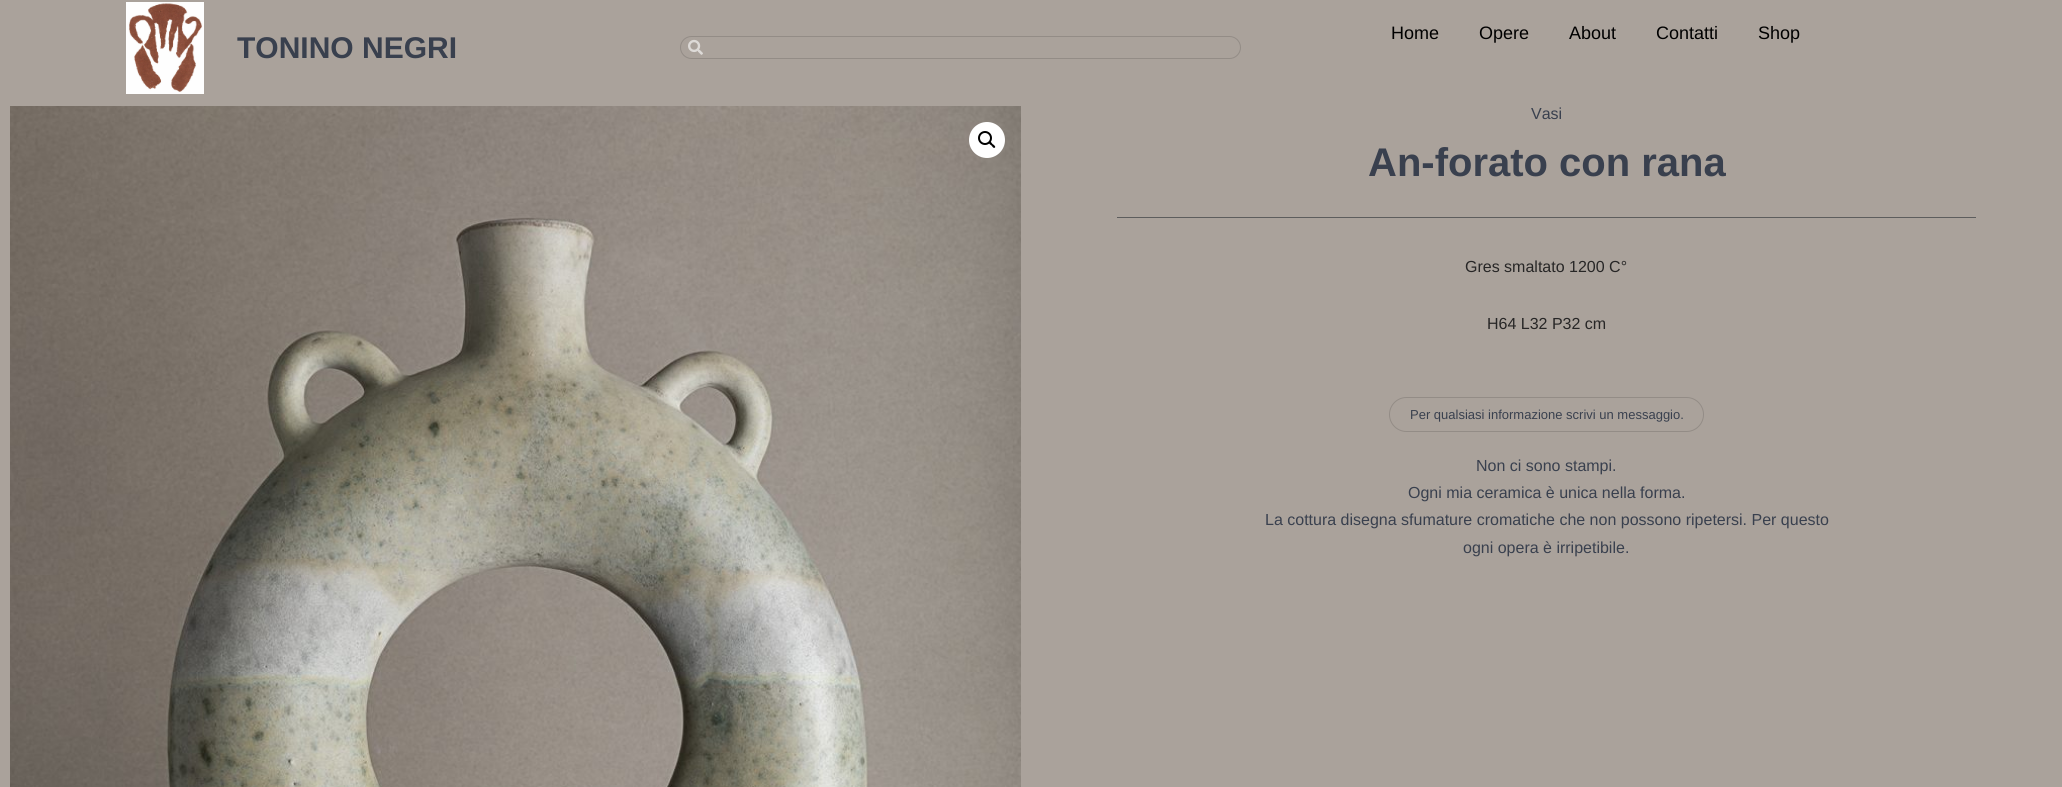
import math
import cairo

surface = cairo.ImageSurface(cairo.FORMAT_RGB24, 2062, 787)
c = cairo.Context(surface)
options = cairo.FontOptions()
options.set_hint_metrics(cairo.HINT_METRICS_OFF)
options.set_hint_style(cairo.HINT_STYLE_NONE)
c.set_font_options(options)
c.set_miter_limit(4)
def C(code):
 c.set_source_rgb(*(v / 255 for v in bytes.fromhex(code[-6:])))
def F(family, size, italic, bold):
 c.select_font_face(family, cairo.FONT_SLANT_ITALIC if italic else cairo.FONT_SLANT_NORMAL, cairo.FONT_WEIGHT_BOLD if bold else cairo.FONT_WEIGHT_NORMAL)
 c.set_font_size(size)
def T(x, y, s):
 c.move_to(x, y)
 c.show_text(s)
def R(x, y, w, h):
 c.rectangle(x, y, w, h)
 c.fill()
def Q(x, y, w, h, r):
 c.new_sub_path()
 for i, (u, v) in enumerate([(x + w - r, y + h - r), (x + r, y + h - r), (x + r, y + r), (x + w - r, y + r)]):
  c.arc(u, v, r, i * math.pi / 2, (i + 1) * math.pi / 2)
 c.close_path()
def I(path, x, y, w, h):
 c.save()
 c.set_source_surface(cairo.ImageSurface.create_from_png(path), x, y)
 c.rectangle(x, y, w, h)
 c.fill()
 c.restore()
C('aaa29b')
c.paint()
I('1.png',126,2,78,92)
F('Liberation Sans',18,0,0)
C('000000')
T(1391,39,'Home')
T(1479,39,'Opere')
T(1569,39,'About')
T(1656,39,'Contatti')
T(1758,39,'Shop')
F('Liberation Sans',30,0,1)
C('39404e')
T(237,58,'TONINO NEGRI')
Q(680.5,36.5,560,22,11)
C('938c86')
c.set_line_width(1)
c.stroke()
I('2.png',688,39,15,16)
I('3.png',10,106,1011,681)
C('ffffff')
c.arc(987,140,18,0,2 * math.pi)
c.fill()
c.arc(985,138,6,0,2 * math.pi)
C('000000')
c.set_line_width(2)
c.stroke()
c.new_path()
c.move_to(989,142)
c.curve_to(990.5,140.5,992,143.5,992.5,144)
c.curve_to(993.5,144.5,996,146.5,995,147.5)
c.curve_to(993.5,149,992,146,991.5,145.5)
c.curve_to(990.5,145,988,143,989,142)
c.close_path()
c.fill()
F('Liberation Sans',16,0,0)
C('39404e')
T(1531,119,'Vasi')
F('Liberation Sans',40,0,1)
T(1368,176,'An-forato con rana')
C('5d5d5d')
R(1117,217,859,1)
F('Liberation Sans',16,0,0)
C('272626')
T(1465,272,'Gres smaltato 1200 C°')
T(1487,329,'H64 L32 P32 cm')
Q(1389.5,397.5,314,34,17)
C('938c86')
c.set_line_width(1)
c.stroke()
F('Liberation Sans',13,0,0)
C('39404e')
T(1410,419,'Per qualsiasi informazione scrivi un messaggio.')
F('Liberation Sans',16,0,0)
T(1476,471,'Non ci sono stampi.')
T(1408,498,'Ogni mia ceramica è unica nella forma.')
T(1265,525,'La cottura disegna sfumature cromatiche che non possono ripetersi. Per questo')
T(1463,553,'ogni opera è irripetibile.')
surface.write_to_png('o.png')
